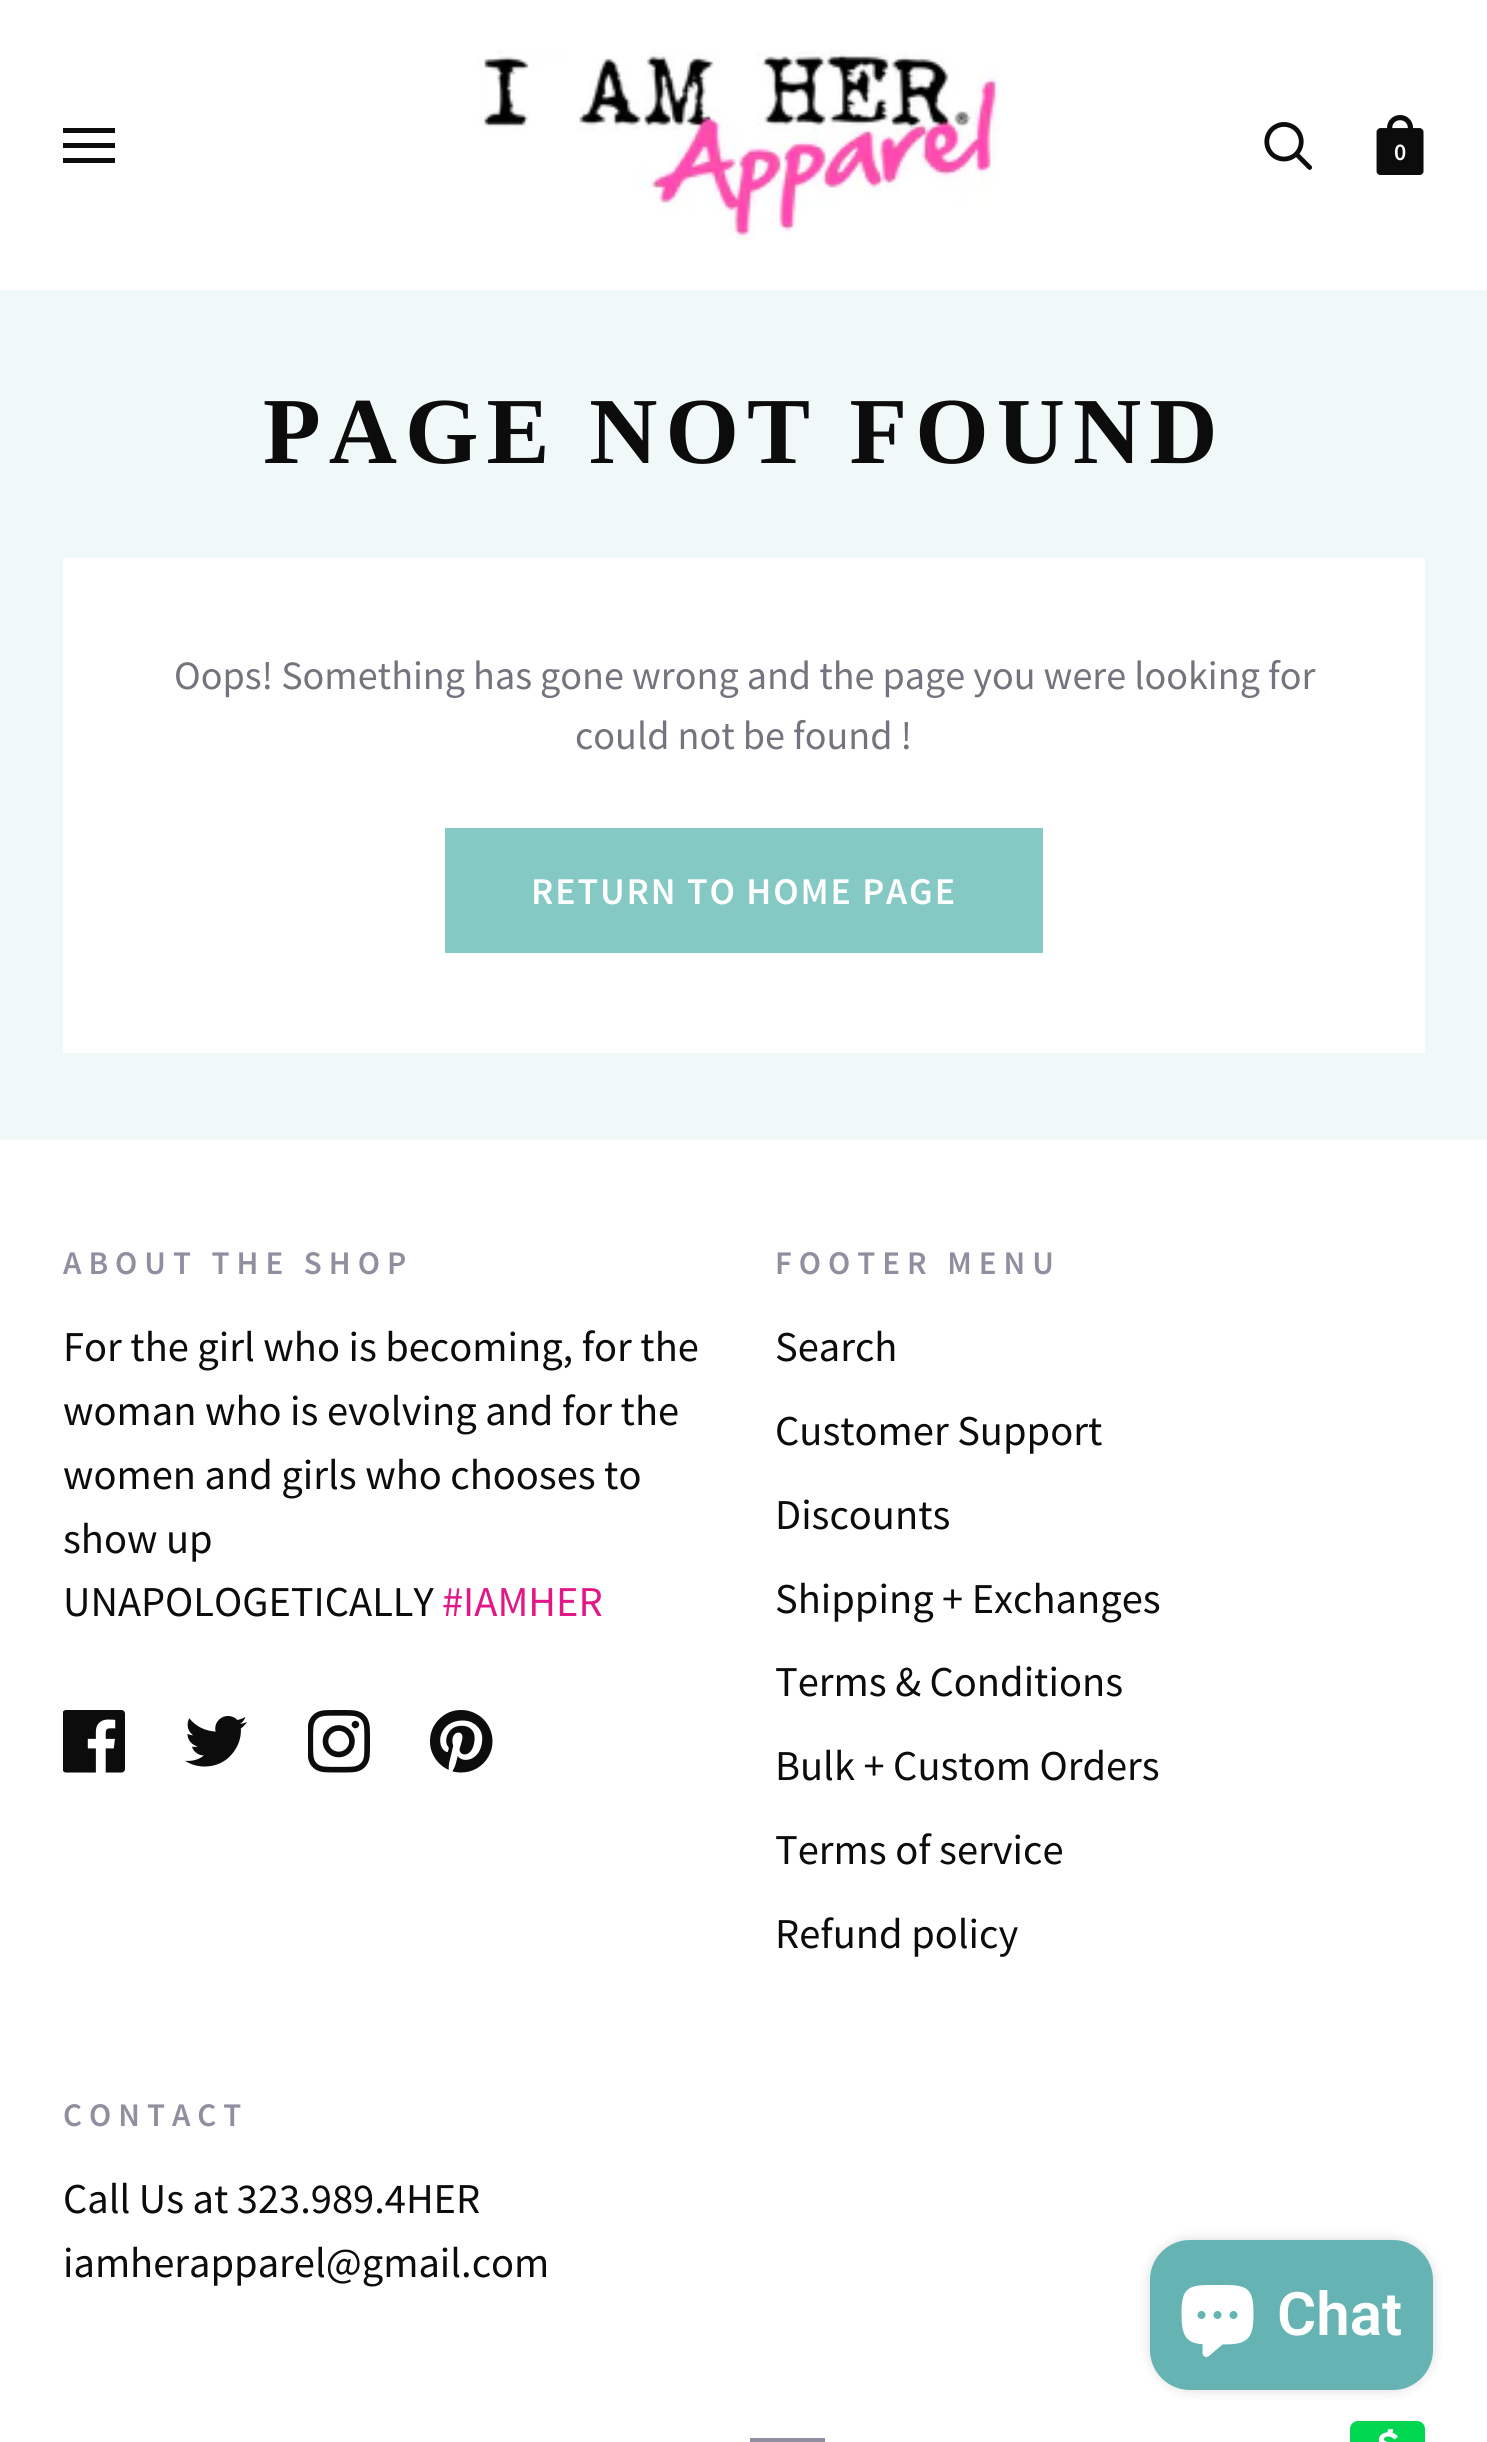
import math
import cairo

surface = cairo.ImageSurface(cairo.FORMAT_RGB24, 1487, 2442)
c = cairo.Context(surface)
options = cairo.FontOptions()
options.set_hint_metrics(cairo.HINT_METRICS_OFF)
options.set_hint_style(cairo.HINT_STYLE_NONE)
c.set_font_options(options)
c.set_miter_limit(4)
def C(code):
 c.set_source_rgb(*(v / 255 for v in bytes.fromhex(code[-6:])))
def F(family, size, italic, bold):
 c.select_font_face(family, cairo.FONT_SLANT_ITALIC if italic else cairo.FONT_SLANT_NORMAL, cairo.FONT_WEIGHT_BOLD if bold else cairo.FONT_WEIGHT_NORMAL)
 c.set_font_size(size)
def T(x, y, s):
 c.move_to(x, y)
 c.show_text(s)
def L(x, y, s, letter, word):
 c.move_to(x, y)
 for ch in s:
  c.show_text(ch)
  c.rel_move_to(letter + word * (ch == ' '), 0)
def R(x, y, w, h):
 c.rectangle(x, y, w, h)
 c.fill()
def Q(x, y, w, h, r):
 c.new_sub_path()
 for i, (u, v) in enumerate([(x + w - r, y + h - r), (x + r, y + h - r), (x + r, y + r), (x + w - r, y + r)]):
  c.arc(u, v, r, i * math.pi / 2, (i + 1) * math.pi / 2)
 c.close_path()
def S(x, y, w, h, r, blur, alpha):
 c.push_group_with_content(cairo.CONTENT_ALPHA)
 c.set_operator(cairo.OPERATOR_SOURCE)
 for i in range(15, -16, -2):
  e = blur * i / 6
  if min(w, h) + 2 * e > 0:
   c.set_source_rgba(0, 0, 0, alpha * math.erfc((i - 1) / 8.5) / 2)
   Q(x - e, y - e, w + 2 * e, h + 2 * e, max(0, min(r + e + blur * .6, min(w, h) / 2 + e)))
   c.fill()
 c.mask(c.pop_group())
def I(path, x, y, w, h):
 c.save()
 c.set_source_surface(cairo.ImageSurface.create_from_png(path), x, y)
 c.rectangle(x, y, w, h)
 c.fill()
 c.restore()
C('ffffff')
c.paint()
C('0c0c0d')
R(63,128,52,5)
R(63,143,52,5)
R(63,158,52,5)
I('1.png',478,50,522,190)
I('2.png',1264,122,49,48)
I('3.png',1376,115,48,60)
F('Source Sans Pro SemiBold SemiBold',24,0,0)
C('ffffff')
T(1394,160,'0')
C('f0f9f8')
R(0,290,1487,850)
F('Liberation Serif',94.5,0,1)
C('0c0c0d')
L(263,463,'PAGE NOT FOUND',8,0)
C('ffffff')
R(63,558,1362,495)
F('Source Sans Pro',40.15,0,0)
C('75737e')
T(174,689,'Oops! Something has gone wrong and the page you were looking for')
T(575,749,'could not be found !')
C('84c9c3')
R(445,828,598,125)
F('Source Sans Pro SemiBold SemiBold',37.75,0,0)
C('ffffff')
L(531,904,'RETURN TO HOME PAGE',1.9,0)
F('Source Sans Pro SemiBold SemiBold',33,0,0)
C('918ea0')
L(63,1274,'ABOUT THE SHOP',7,0)
F('Source Sans Pro',42.5,0,0)
C('0c0c0d')
T(63,1361,'For the girl who is becoming, for the')
T(63,1425,'woman who is evolving and for the')
T(63,1489,'women and girls who chooses to')
T(63,1553,'show up')
T(63,1616,'UNAPOLOGETICALLY')
C('e11687')
T(442,1616,'#IAMHER')
I('4.png',63,1710,62,63)
I('5.png',185,1716,62,51)
I('6.png',308,1710,62,63)
I('7.png',430,1710,63,63)
F('Source Sans Pro SemiBold SemiBold',33,0,0)
C('918ea0')
L(775,1274,'FOOTER MENU',7,0)
F('Source Sans Pro',42.5,0,0)
C('0c0c0d')
T(775,1361,'Search')
T(775,1445,'Customer Support')
T(775,1529,'Discounts')
T(775,1613,'Shipping + Exchanges')
T(775,1696,'Terms & Conditions')
T(775,1780,'Bulk + Custom Orders')
T(775,1864,'Terms of service')
T(775,1948,'Refund policy')
F('Source Sans Pro SemiBold SemiBold',33,0,0)
C('918ea0')
L(63,2126,'CONTACT',7,0)
F('Source Sans Pro',42.5,0,0)
C('0c0c0d')
T(63,2213,'Call Us at 323.989.4HER')
T(63,2277,'iamherapparel@gmail.com')
C('918ea0')
R(750,2438,75,4)
I('8.png',1350,2421,75,21)
C('000000')
S(1150,2240,283,150,40,6,.15)
C('66b3b3')
Q(1150,2240,283,150,40)
c.fill()
I('9.png',1181,2285,73,72)
F('Roboto SemiBold',60,0,0)
C('ffffff')
T(1277,2335,'Chat')
surface.write_to_png('o.png')
